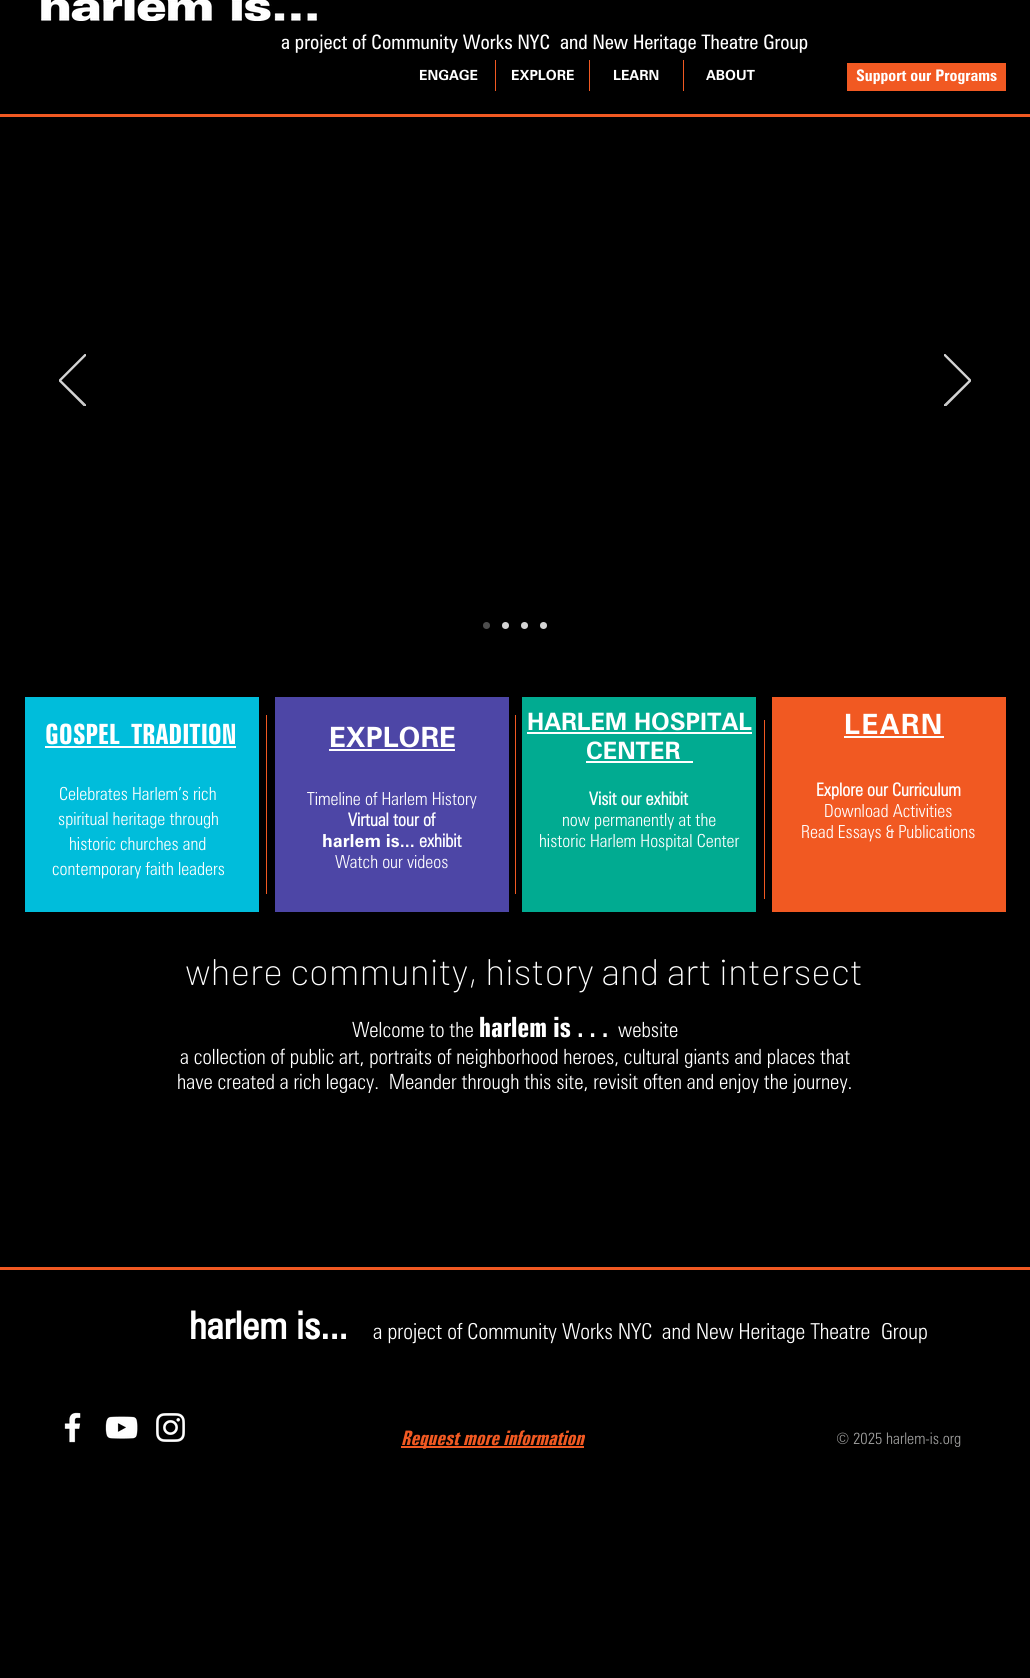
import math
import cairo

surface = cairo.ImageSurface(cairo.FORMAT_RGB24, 1030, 1678)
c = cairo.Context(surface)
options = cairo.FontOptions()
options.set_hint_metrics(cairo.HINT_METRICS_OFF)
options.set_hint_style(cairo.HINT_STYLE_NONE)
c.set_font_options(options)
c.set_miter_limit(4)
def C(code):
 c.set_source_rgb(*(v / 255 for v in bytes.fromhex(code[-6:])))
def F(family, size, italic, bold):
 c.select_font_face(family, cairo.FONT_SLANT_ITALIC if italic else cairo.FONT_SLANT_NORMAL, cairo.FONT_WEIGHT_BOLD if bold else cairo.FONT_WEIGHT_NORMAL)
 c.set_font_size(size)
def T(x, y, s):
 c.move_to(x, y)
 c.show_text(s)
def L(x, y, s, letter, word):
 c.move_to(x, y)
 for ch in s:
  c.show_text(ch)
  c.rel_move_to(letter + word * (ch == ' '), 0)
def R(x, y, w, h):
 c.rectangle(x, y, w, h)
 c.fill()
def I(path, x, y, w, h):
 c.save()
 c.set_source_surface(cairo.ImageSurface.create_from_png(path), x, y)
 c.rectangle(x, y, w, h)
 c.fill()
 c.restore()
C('000000')
c.paint()
I('1.png',41,0,276,21)
F('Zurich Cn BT',20,0,0)
C('ffffff')
T(281,49,'a project of Community Works NYC')
T(560,49,'and New Heritage Theatre Group')
F('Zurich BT',14,0,1)
T(419,80,'ENGAGE')
C('f15922')
R(495,60,1,31)
C('ffffff')
T(511,80,'EXPLORE')
C('f15922')
R(589,60,1,31)
C('ffffff')
T(613,80,'LEARN')
C('f15922')
R(683,60,1,31)
C('ffffff')
T(706,80,'ABOUT')
C('f15922')
R(847,63,159,28)
F('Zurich',16,0,1)
C('ffffff')
T(856,81,'Support our Programs')
C('f15922')
R(0,114,1030,3)
c.save()
c.rectangle(59,354,27,52)
c.clip()
c.new_path()
c.move_to(85,406.5)
c.line_to(59,380.5)
c.line_to(85,354.5)
c.line_to(86,355)
c.line_to(60.5,380.5)
c.line_to(86,405.5)
c.close_path()
C('d4d4d4')
c.set_line_width(1.3)
c.stroke()
c.restore()
c.save()
c.rectangle(944,354,27,52)
c.clip()
c.new_path()
c.move_to(945,406.5)
c.line_to(971,380.5)
c.line_to(945,354.5)
c.line_to(944,355)
c.line_to(969.5,380.5)
c.line_to(944,405.5)
c.close_path()
C('d4d4d4')
c.set_line_width(1.3)
c.stroke()
c.restore()
C('4d4d4d')
c.arc(486.5,625.5,3.5,0,2 * math.pi)
c.fill()
C('d4d4d4')
c.arc(505.5,625.5,3.5,0,2 * math.pi)
c.fill()
c.arc(524.5,625.5,3.5,0,2 * math.pi)
c.fill()
c.arc(543.5,625.5,3.5,0,2 * math.pi)
c.fill()
C('00bddb')
R(25,697,234,215)
C('01ab91')
R(522,697,234,215)
F('Zurich BT',24,0,1)
C('ffffff')
T(527,730,'HARLEM HOSPITAL')
R(527,732,225,2)
T(586,759,'CENTER')
R(586,761,107,2)
F('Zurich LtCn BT',18,0,1)
T(589,805,'Visit our exhibit')
F('Zurich LtCn BT Light',18,0,0)
T(562,826,'now permanently at the')
T(539,847,'historic Harlem Hospital Center')
C('f15922')
R(772,697,234,215)
F('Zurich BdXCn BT',28,0,1)
C('ffffff')
T(45,744,'GOSPEL')
R(45,746,191,2)
T(131,744,'TRADITION')
C('f15922')
R(266,715,1,179)
C('4d46a6')
R(275,697,234,215)
F('Zurich BT',28,0,1)
C('ffffff')
T(329,747,'EXPLORE')
R(329,749,126,2)
F('Zurich LtCn BT Light',18,0,0)
T(307,805,'Timeline of Harlem History')
F('Zurich LtCn BT',18,0,1)
T(348,826,'Virtual tour of')
F('Zurich BT',18,0,1)
T(322,847,'harlem is...')
F('Zurich LtCn BT',18,0,1)
T(419,847,'exhibit')
F('Zurich LtCn BT Light',18,0,0)
T(335,868,'Watch our videos')
C('f15922')
R(515,715,1,179)
R(764,720,1,179)
F('Zurich BT',28,0,1)
C('ffffff')
L(844,734,'LEARN',1.5,0)
R(844,736,100,2)
F('Zurich LtCn BT Light',18,0,0)
T(59,800,'Celebrates Harlem’s rich')
T(58,825,'spiritual heritage through')
T(69,850,'historic churches and')
T(52,875,'contemporary faith leaders')
F('Zurich LtCn BT',18,0,1)
T(816,796,'Explore our Curriculum')
F('Zurich LtCn BT Light',18,0,0)
T(824,817,'Download Activities')
T(801,838,'Read Essays & Publications')
F('Barlow ExtraLight',37,0,0)
T(185,985,'where community, history and art intersect')
F('Zurich LtCn BT Light',21,0,0)
T(352,1037,'Welcome to the')
F('Zurich BdXCn BT',28,0,1)
T(479,1037,'harlem is . . .')
F('Zurich LtCn BT Light',21,0,0)
T(618,1037,'website')
T(180,1064,'a collection of public art, portraits of neighborhood heroes, cultural giants and places that')
T(177,1089,'have created a rich legacy.')
T(389,1089,'Meander through this site, revisit often and enjoy the journey.')
C('f15922')
R(0,1267,1030,3)
F('Zurich Cn BT',38,0,1)
C('ffffff')
T(189,1339,'harlem is...')
F('Zurich LtCn BT Light',22,0,0)
T(373,1339,'a project of Community Works NYC')
T(662,1339,'and New Heritage Theatre')
T(881,1339,'Group')
I('2.png',64,1412,17,31)
I('3.png',105,1416,33,23)
I('4.png',156,1413,29,29)
C('f15922')
R(401,1446,183,2)
F('Zurich BdXCn BT',20,1,1)
T(401,1445,'Request more information')
F('Zurich LtCn BT Light',16,0,0)
C('a0a09f')
T(836,1444,'© 2025 harlem-is.org')
surface.write_to_png('o.png')
